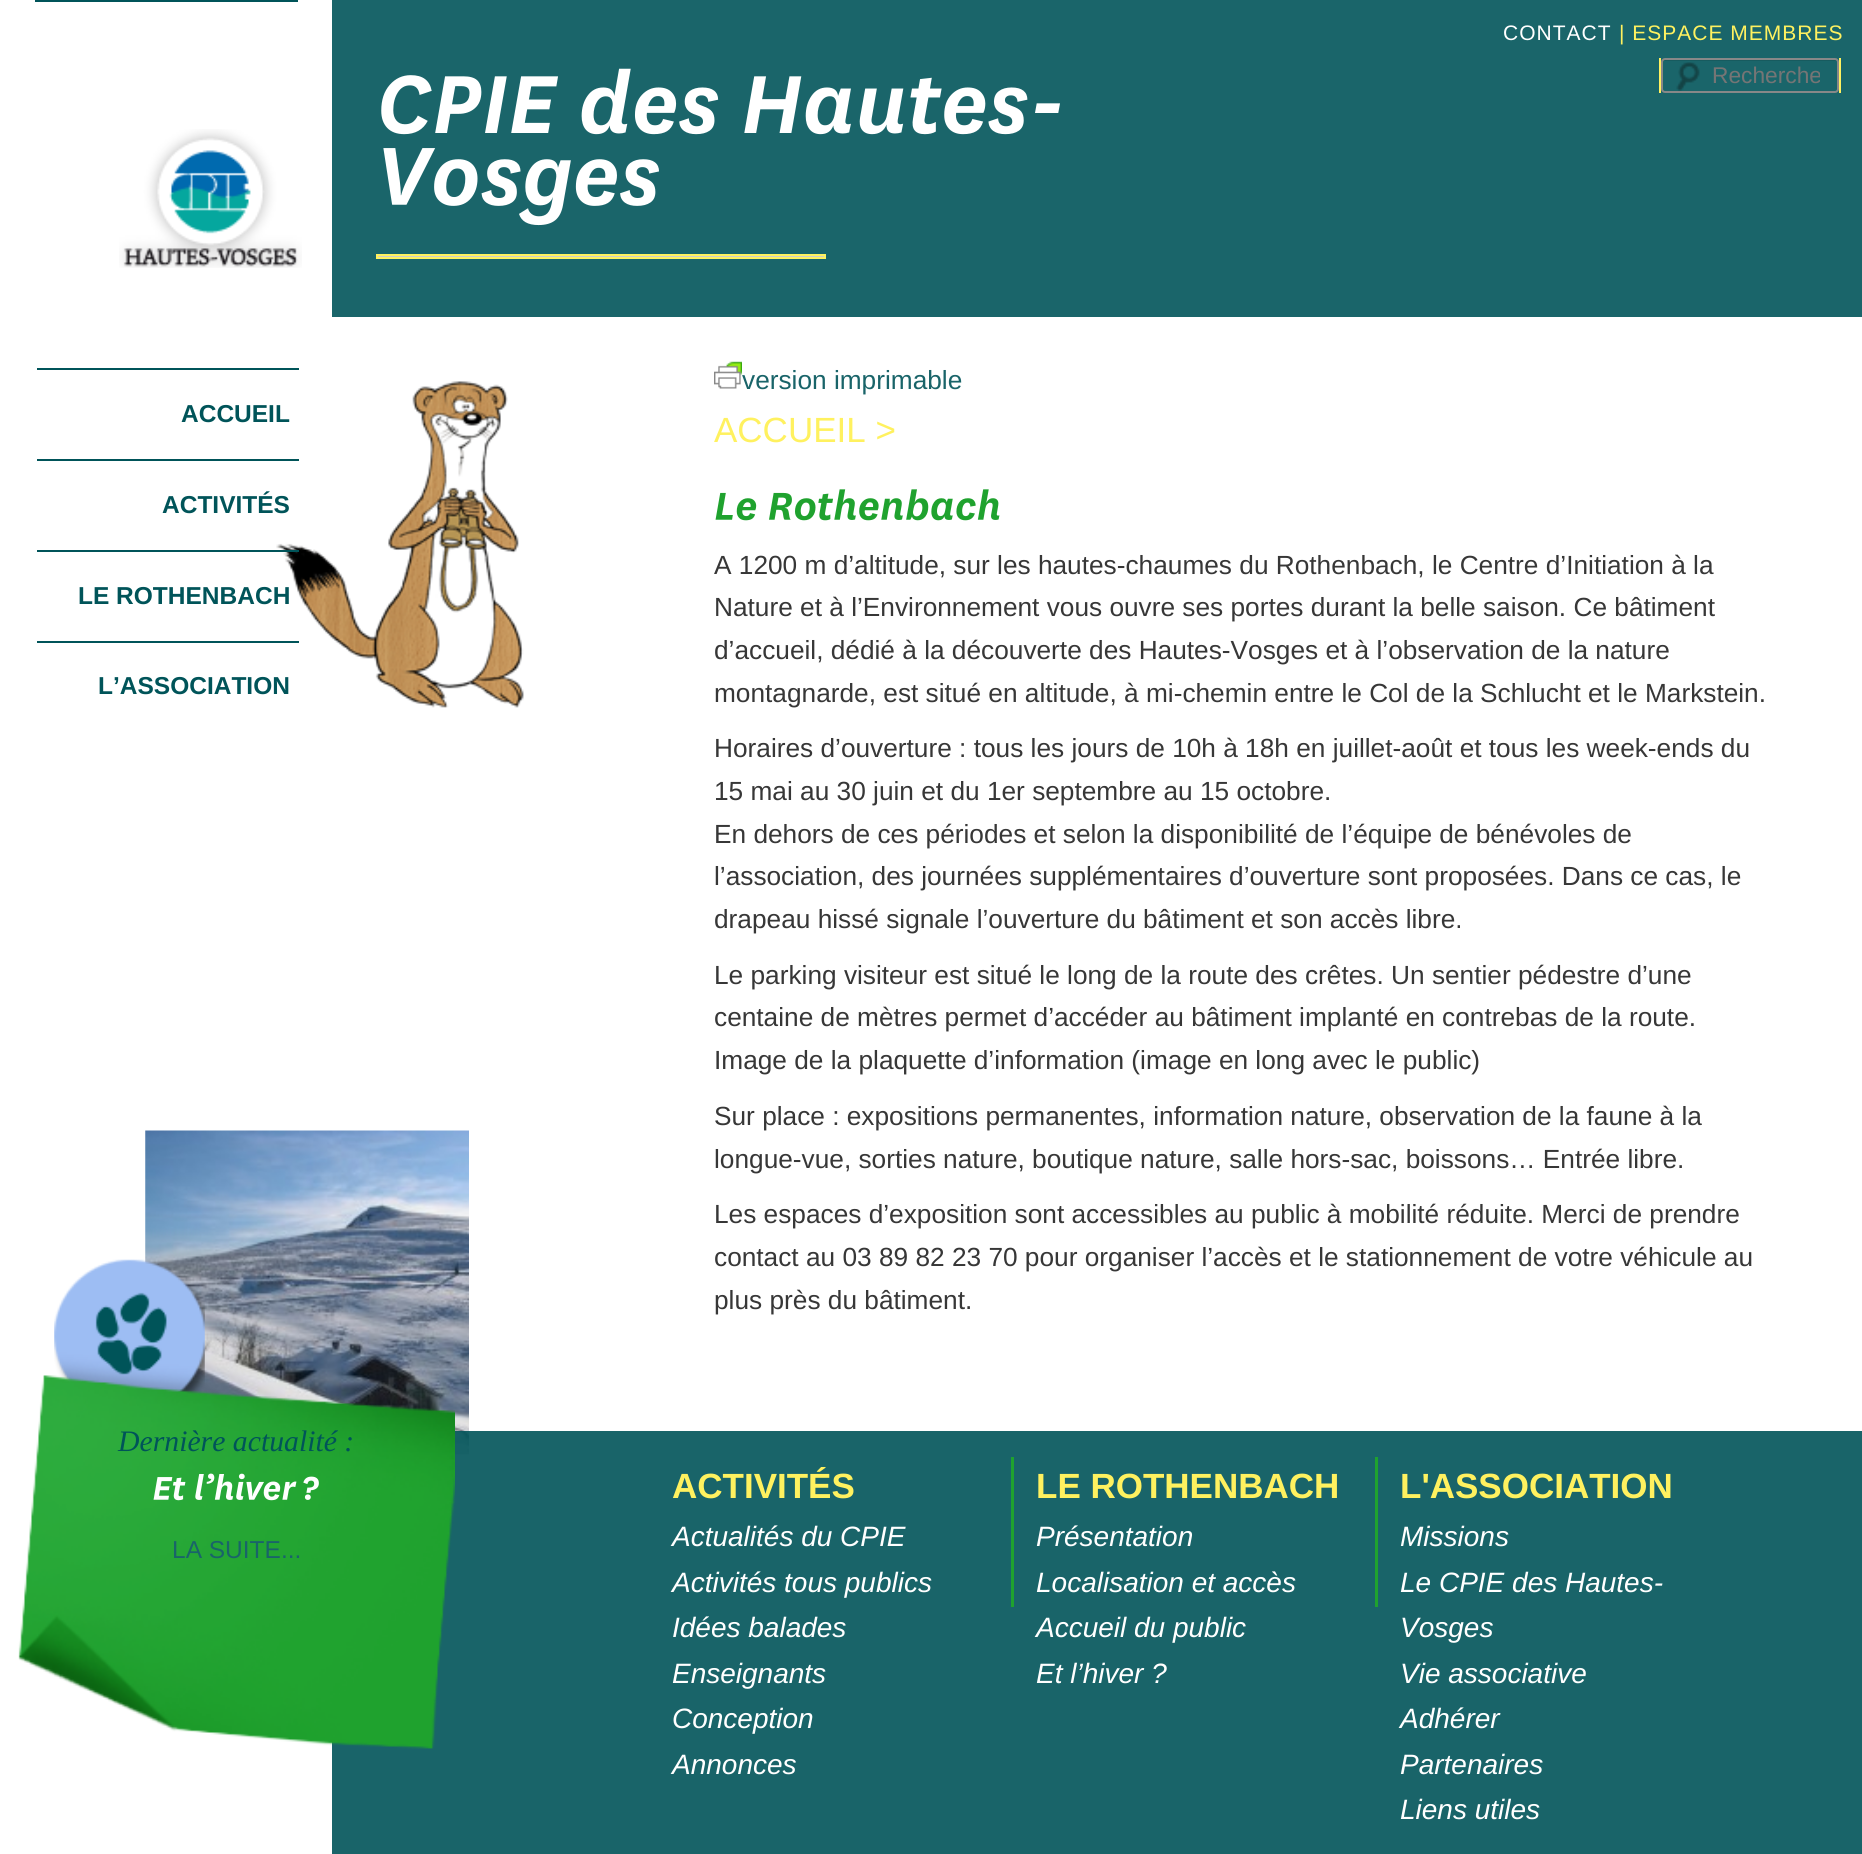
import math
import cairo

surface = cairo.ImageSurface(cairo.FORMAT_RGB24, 1862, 1854)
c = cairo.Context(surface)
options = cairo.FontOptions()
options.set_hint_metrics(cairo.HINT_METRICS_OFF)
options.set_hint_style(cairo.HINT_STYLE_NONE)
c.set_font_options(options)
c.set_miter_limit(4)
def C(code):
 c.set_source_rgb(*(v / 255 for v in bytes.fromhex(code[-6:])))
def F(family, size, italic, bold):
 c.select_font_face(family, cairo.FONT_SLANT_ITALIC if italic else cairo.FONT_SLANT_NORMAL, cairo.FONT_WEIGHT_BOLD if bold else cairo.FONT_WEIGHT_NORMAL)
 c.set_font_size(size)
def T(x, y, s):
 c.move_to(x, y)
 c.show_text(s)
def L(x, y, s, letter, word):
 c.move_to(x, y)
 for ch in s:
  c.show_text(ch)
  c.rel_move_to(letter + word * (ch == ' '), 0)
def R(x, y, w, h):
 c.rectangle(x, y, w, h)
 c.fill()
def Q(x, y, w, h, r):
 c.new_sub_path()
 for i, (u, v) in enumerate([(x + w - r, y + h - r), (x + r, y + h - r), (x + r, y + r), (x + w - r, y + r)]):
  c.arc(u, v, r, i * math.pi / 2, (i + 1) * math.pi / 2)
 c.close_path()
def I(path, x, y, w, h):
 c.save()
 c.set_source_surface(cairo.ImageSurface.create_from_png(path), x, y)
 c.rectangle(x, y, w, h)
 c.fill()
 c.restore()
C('ffffff')
c.paint()
C('1a656a')
R(332,0,1530,317)
F('Liberation Sans',21,0,0)
C('ffffff')
L(1503,40,'CONTACT',1,0)
C('fff15f')
L(1619,40,'| ESPACE MEMBRES',1,0)
I('1.png',381,68,679,67)
I('2.png',383,148,276,78)
C('cccccc')
c.rectangle(377,255,448,3)
c.fill_preserve()
C('fff15f')
c.stroke()
R(1839,58,2,35)
R(1659,58,2,35)
I('3.png',1676,62,24,29)
C('175b5f')
c.new_path()
c.move_to(1664,61)
c.line_to(1836,61)
c.curve_to(1837,61,1838,62,1838,63)
c.curve_to(1838,62,1838,60,1836,60)
c.line_to(1665,60)
c.line_to(1663,61)
c.close_path()
c.fill()
Q(1662,59,176,33,3)
C('888888')
c.stroke()
c.save()
c.rectangle(1712,61,108,27)
c.clip()
F('Liberation Sans',22.75,0,0)
C('757575')
T(1712,83,'Recherche')
c.restore()
I('4.png',145,1130,324,325)
I('5.png',276,381,248,327)
I('6.png',714,361,28,28)
F('Liberation Sans',26.25,0,0)
C('196469')
T(742,389,'version imprimable')
F('Liberation Sans',35,0,0)
C('fff15f')
T(714,442,'ACCUEIL >')
I('7.png',715,489,285,32)
F('Liberation Sans',26.25,0,0)
C('373737')
T(714,574,'A 1200 m d’altitude, sur les hautes-chaumes du Rothenbach, le Centre d’Initiation à la')
T(714,616,'Nature et à l’Environnement vous ouvre ses portes durant la belle saison. Ce bâtiment')
T(714,659,'d’accueil, dédié à la découverte des Hautes-Vosges et à l’observation de la nature')
T(714,702,'montagnarde, est situé en altitude, à mi-chemin entre le Col de la Schlucht et le Markstein.')
T(714,757,'Horaires d’ouverture : tous les jours de 10h à 18h en juillet-août et tous les week-ends du')
T(714,800,'15 mai au 30 juin et du 1er septembre au 15 octobre.')
T(714,843,'En dehors de ces périodes et selon la disponibilité de l’équipe de bénévoles de')
T(714,885,'l’association, des journées supplémentaires d’ouverture sont proposées. Dans ce cas, le')
T(714,928,'drapeau hissé signale l’ouverture du bâtiment et son accès libre.')
T(714,984,'Le parking visiteur est situé le long de la route des crêtes. Un sentier pédestre d’une')
T(714,1026,'centaine de mètres permet d’accéder au bâtiment implanté en contrebas de la route.')
T(714,1069,'Image de la plaquette d’information (image en long avec le public)')
T(714,1125,'Sur place : expositions permanentes, information nature, observation de la faune à la')
T(714,1168,'longue-vue, sorties nature, boutique nature, salle hors-sac, boissons… Entrée libre.')
T(714,1223,'Les espaces d’exposition sont accessibles au public à mobilité réduite. Merci de prendre')
T(714,1266,'contact au 03 89 82 23 70 pour organiser l’accès et le stationnement de votre véhicule au')
T(714,1309,'plus près du bâtiment.')
I('8.png',54,1259,151,135)
c.set_source_rgba(0,0.329,0.349,0.9)
R(332,1431,1530,423)
I('9.png',18,1375,437,374)
F('Liberation Serif',29.75,1,0)
C('005459')
T(118,1451,'Dernière actualité :')
I('10.png',153,1473,166,28)
F('Liberation Sans',24.5,0,0)
C('196469')
T(172,1558,'LA SUITE...')
F('Liberation Sans',35,0,1)
C('fff15f')
T(672,1498,'ACTIVITÉS')
F('Liberation Sans',28,1,0)
C('ffffff')
T(672,1546,'Actualités du CPIE')
T(672,1592,'Activités tous publics')
T(672,1637,'Idées balades')
T(672,1683,'Enseignants')
T(672,1728,'Conception')
T(672,1774,'Annonces')
C('1fa22e')
R(1011,1457,3,150)
F('Liberation Sans',35,0,1)
C('fff15f')
T(1036,1498,'LE ROTHENBACH')
F('Liberation Sans',28,1,0)
C('ffffff')
T(1036,1546,'Présentation')
T(1036,1592,'Localisation et accès')
T(1036,1637,'Accueil du public')
T(1036,1683,'Et l’hiver ?')
C('1fa22e')
R(1375,1457,3,150)
F('Liberation Sans',35,0,1)
C('fff15f')
T(1400,1498,'L\'ASSOCIATION')
F('Liberation Sans',28,1,0)
C('ffffff')
T(1400,1546,'Missions')
T(1400,1592,'Le CPIE des Hautes-')
T(1400,1637,'Vosges')
T(1400,1683,'Vie associative')
T(1400,1728,'Adhérer')
T(1400,1774,'Partenaires')
T(1400,1819,'Liens utiles')
C('005459')
R(35,0,263,2)
I('11.png',119,129,183,139)
R(37,368,262,2)
F('Liberation Sans',24.5,0,1)
T(181,422,'ACCUEIL')
R(37,459,262,2)
T(162,513,'ACTIVITÉS')
R(37,550,262,2)
T(78,604,'LE ROTHENBACH')
R(37,641,262,2)
T(98,694,'L’ASSOCIATION')
surface.write_to_png('o.png')
